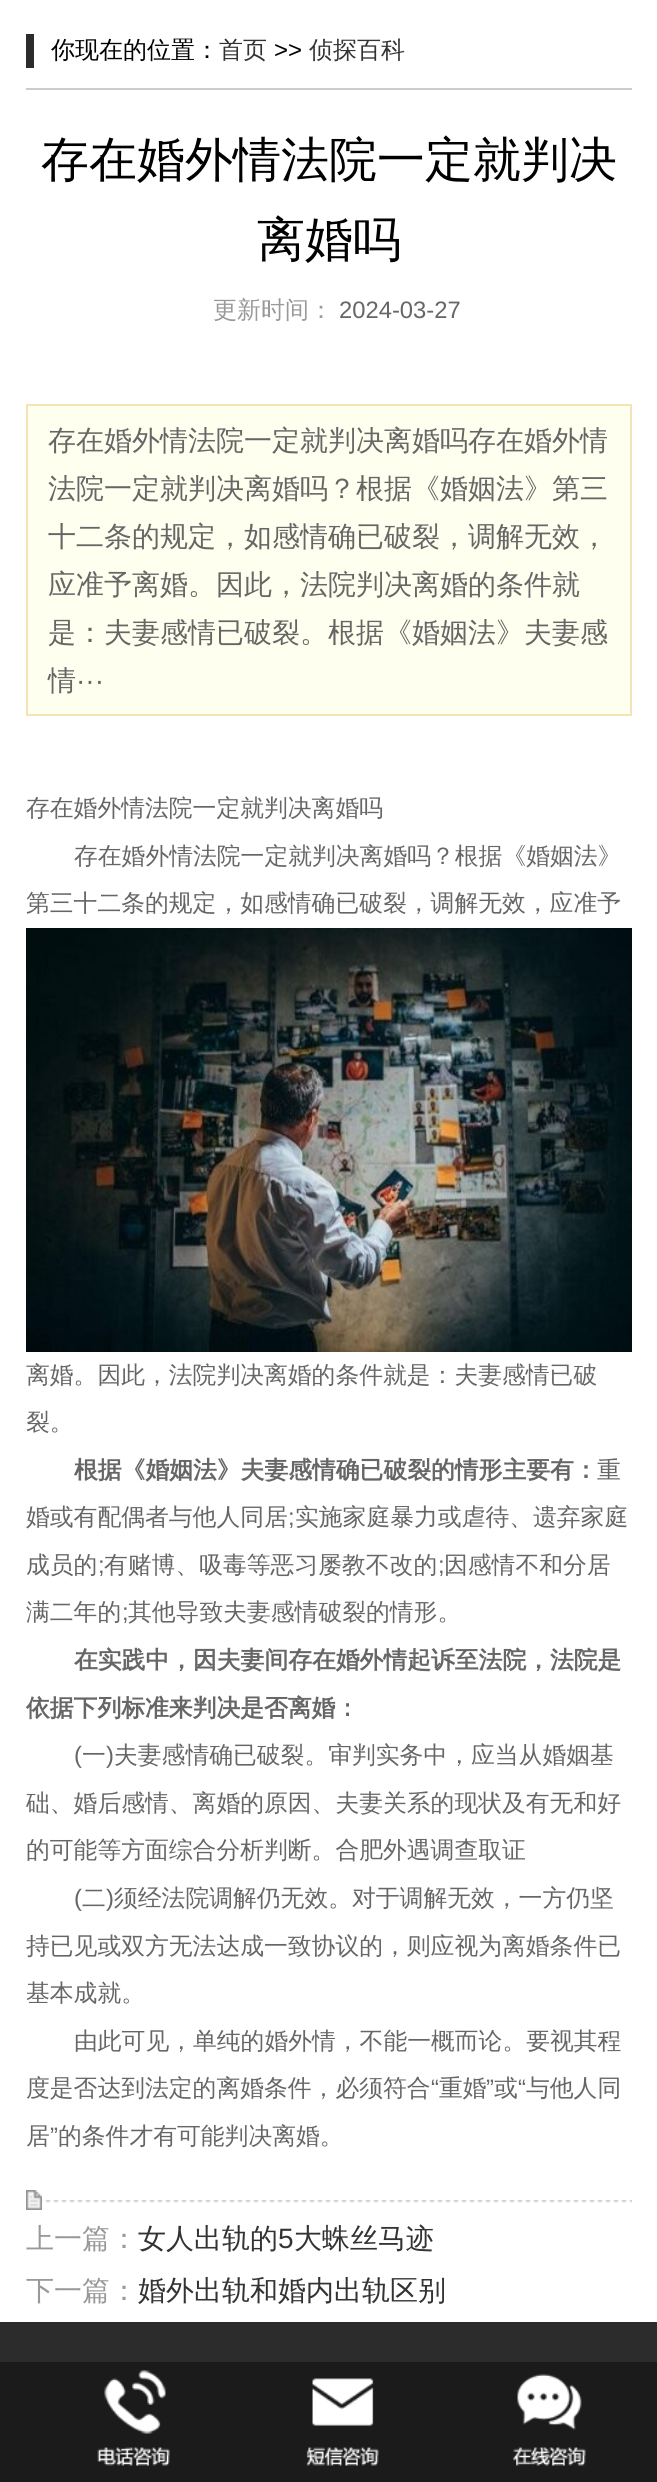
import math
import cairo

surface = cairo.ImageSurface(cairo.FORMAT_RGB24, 657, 2482)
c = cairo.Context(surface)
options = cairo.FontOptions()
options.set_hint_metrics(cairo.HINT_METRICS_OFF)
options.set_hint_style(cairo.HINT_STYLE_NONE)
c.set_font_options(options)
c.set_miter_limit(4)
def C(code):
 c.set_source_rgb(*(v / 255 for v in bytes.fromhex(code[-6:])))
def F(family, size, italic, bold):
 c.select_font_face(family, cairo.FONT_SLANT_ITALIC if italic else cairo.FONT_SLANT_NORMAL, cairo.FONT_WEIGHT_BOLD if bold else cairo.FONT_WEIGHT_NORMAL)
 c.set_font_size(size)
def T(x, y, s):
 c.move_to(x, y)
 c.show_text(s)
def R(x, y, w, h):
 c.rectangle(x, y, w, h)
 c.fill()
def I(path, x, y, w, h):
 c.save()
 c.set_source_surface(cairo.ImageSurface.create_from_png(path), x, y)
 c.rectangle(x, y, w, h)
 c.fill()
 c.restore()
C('ffffff')
c.paint()
C('2c2c2c')
R(26,34,8,34)
F('WenQuanYi Zen Hei Medium',24,0,0)
C('000000')
T(51,58,'你现在的位置：')
C('333333')
T(219,58,'首页')
F('Liberation Sans',24,0,0)
C('000000')
T(274,58,'>>')
F('WenQuanYi Zen Hei Medium',24,0,0)
C('333333')
T(309,58,'侦探百科')
C('cccccc')
R(26,88,606,2)
F('WenQuanYi Zen Hei Medium',48,0,0)
C('000000')
T(41,176,'存在婚外情法院一定就判决')
T(257,256,'离婚吗')
F('WenQuanYi Zen Hei Medium',24,0,0)
C('999999')
T(213,318,'更新时间：')
F('Liberation Sans',23.8,0,0)
C('666666')
T(339,318,'2024-03-27')
C('fffff0')
c.rectangle(27,405,604,310)
c.fill_preserve()
C('f4e4b4')
c.stroke()
F('WenQuanYi Zen Hei Medium',28,0,0)
C('666666')
T(48,450,'存在婚外情法院一定就判决离婚吗存在婚外情')
T(48,498,'法院一定就判决离婚吗？根据《婚姻法》第三')
T(48,546,'十二条的规定，如感情确已破裂，调解无效，')
T(48,594,'应准予离婚。因此，法院判决离婚的条件就')
T(48,642,'是：夫妻感情已破裂。根据《婚姻法》夫妻感')
T(48,690,'情')
F('Liberation Sans',28,0,0)
T(76,690,'···')
F('WenQuanYi Zen Hei Medium',23.8,0,0)
T(26,816,'存在婚外情法院一定就判决离婚吗')
T(74,864,'存在婚外情法院一定就判决离婚吗？根据《婚姻法》')
T(26,911,'第三十二条的规定，如感情确已破裂，调解无效，应准予')
I('1.png',26,928,606,424)
T(26,1383,'离婚。因此，法院判决离婚的条件就是：夫妻感情已破')
T(26,1430,'裂。')
F('WenQuanYi Zen Hei',23.8,0,1)
T(74,1478,'根据《婚姻法》夫妻感情确已破裂的情形主要有：')
F('WenQuanYi Zen Hei Medium',23.8,0,0)
T(597,1478,'重')
T(26,1525,'婚或有配偶者与他人同居')
F('Liberation Sans',23.8,0,0)
T(288,1525,';')
F('WenQuanYi Zen Hei Medium',23.8,0,0)
T(295,1525,'实施家庭暴力或虐待、遗弃家庭')
T(26,1573,'成员的')
F('Liberation Sans',23.8,0,0)
T(98,1573,';')
F('WenQuanYi Zen Hei Medium',23.8,0,0)
T(104,1573,'有赌博、吸毒等恶习屡教不改的')
F('Liberation Sans',23.8,0,0)
T(438,1573,';')
F('WenQuanYi Zen Hei Medium',23.8,0,0)
T(444,1573,'因感情不和分居')
T(26,1620,'满二年的')
F('Liberation Sans',23.8,0,0)
T(122,1620,';')
F('WenQuanYi Zen Hei Medium',23.8,0,0)
T(128,1620,'其他导致夫妻感情破裂的情形。')
F('WenQuanYi Zen Hei',23.8,0,1)
T(74,1668,'在实践中，因夫妻间存在婚外情起诉至法院，法院是')
T(26,1716,'依据下列标准来判决是否离婚：')
F('Liberation Sans',23.8,0,0)
T(74,1763,'(')
F('WenQuanYi Zen Hei Medium',23.8,0,0)
T(82,1763,'一')
F('Liberation Sans',23.8,0,0)
T(106,1763,')')
F('WenQuanYi Zen Hei Medium',23.8,0,0)
T(114,1763,'夫妻感情确已破裂。审判实务中，应当从婚姻基')
T(26,1811,'础、婚后感情、离婚的原因、夫妻关系的现状及有无和好')
T(26,1858,'的可能等方面综合分析判断。合肥外遇调查取证')
F('Liberation Sans',23.8,0,0)
T(74,1906,'(')
F('WenQuanYi Zen Hei Medium',23.8,0,0)
T(82,1906,'二')
F('Liberation Sans',23.8,0,0)
T(106,1906,')')
F('WenQuanYi Zen Hei Medium',23.8,0,0)
T(114,1906,'须经法院调解仍无效。对于调解无效，一方仍坚')
T(26,1954,'持已见或双方无法达成一致协议的，则应视为离婚条件已')
T(26,2001,'基本成就。')
T(74,2049,'由此可见，单纯的婚外情，不能一概而论。要视其程')
T(26,2096,'度是否达到法定的离婚条件，必须符合')
F('Liberation Sans',23.8,0,0)
T(431,2096,'“')
F('WenQuanYi Zen Hei Medium',23.8,0,0)
T(439,2096,'重婚')
F('Liberation Sans',23.8,0,0)
T(486,2096,'”')
F('WenQuanYi Zen Hei Medium',23.8,0,0)
T(494,2096,'或')
F('Liberation Sans',23.8,0,0)
T(518,2096,'“')
F('WenQuanYi Zen Hei Medium',23.8,0,0)
T(526,2096,'与他人同')
T(26,2144,'居')
F('Liberation Sans',23.8,0,0)
T(50,2144,'”')
F('WenQuanYi Zen Hei Medium',23.8,0,0)
T(58,2144,'的条件才有可能判决离婚。')
I('2.png',42,2200,590,3)
I('3.png',26,2190,16,20)
F('WenQuanYi Zen Hei Medium',28,0,0)
C('999999')
T(26,2248,'上一篇：')
C('333333')
T(138,2248,'女人出轨的')
F('Liberation Sans',28,0,0)
T(278,2248,'5')
F('WenQuanYi Zen Hei Medium',28,0,0)
T(294,2248,'大蛛丝马迹')
C('999999')
T(26,2300,'下一篇：')
C('333333')
T(138,2300,'婚外出轨和婚内出轨区别')
C('2c2c2c')
R(0,2322,657,40)
C('1b1b1b')
R(0,2362,657,120)
I('4.png',97,2370,73,96)
I('5.png',306,2378,73,88)
I('6.png',513,2374,73,92)
surface.write_to_png('o.png')
